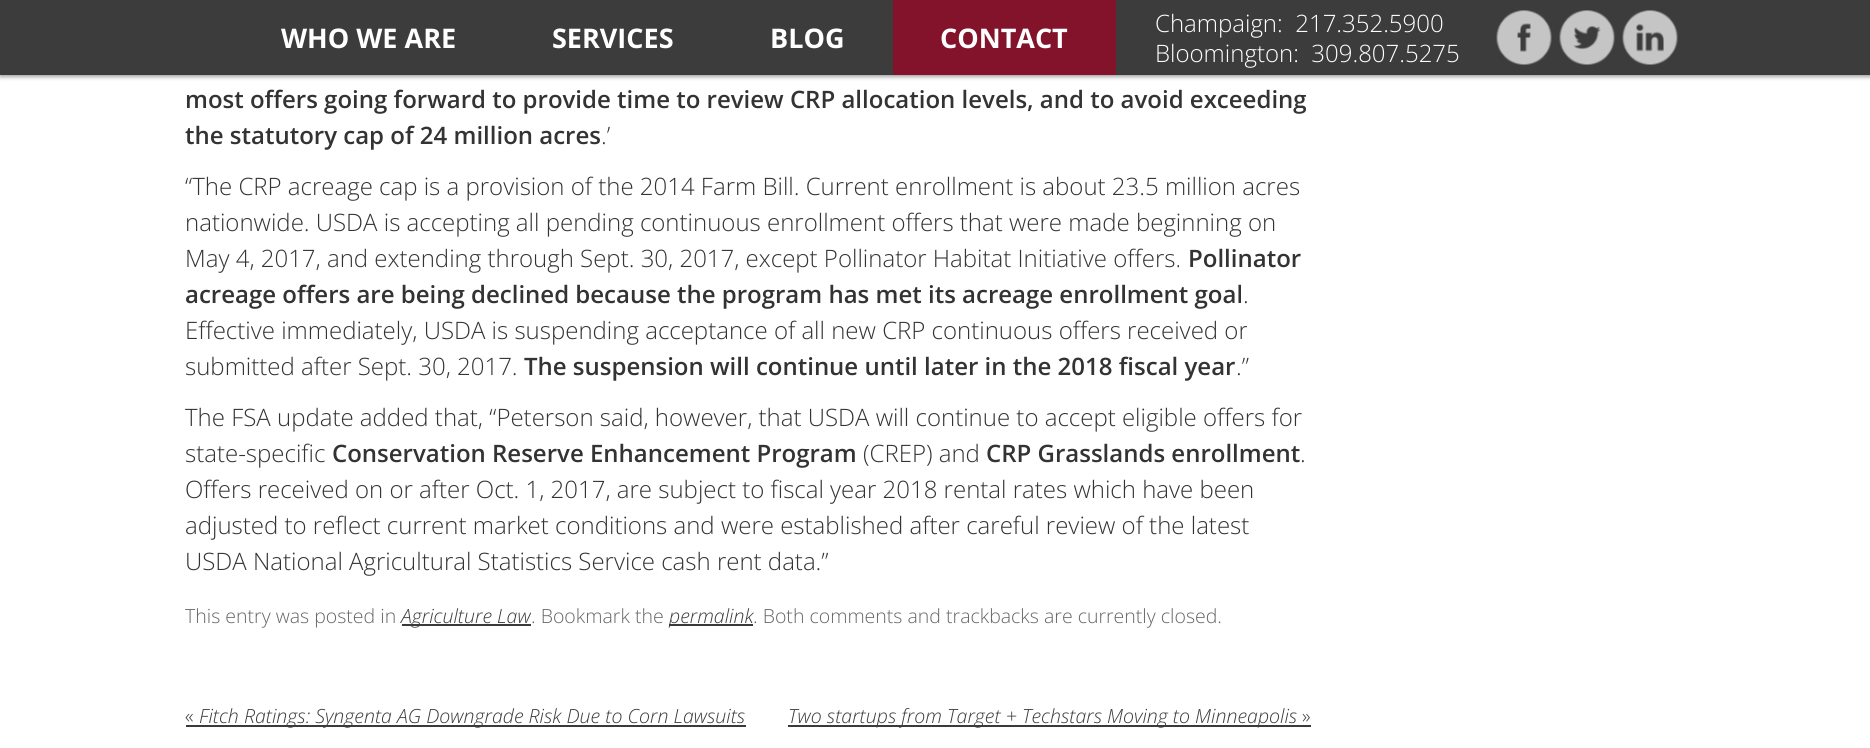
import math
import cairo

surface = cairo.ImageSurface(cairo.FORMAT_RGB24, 1870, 748)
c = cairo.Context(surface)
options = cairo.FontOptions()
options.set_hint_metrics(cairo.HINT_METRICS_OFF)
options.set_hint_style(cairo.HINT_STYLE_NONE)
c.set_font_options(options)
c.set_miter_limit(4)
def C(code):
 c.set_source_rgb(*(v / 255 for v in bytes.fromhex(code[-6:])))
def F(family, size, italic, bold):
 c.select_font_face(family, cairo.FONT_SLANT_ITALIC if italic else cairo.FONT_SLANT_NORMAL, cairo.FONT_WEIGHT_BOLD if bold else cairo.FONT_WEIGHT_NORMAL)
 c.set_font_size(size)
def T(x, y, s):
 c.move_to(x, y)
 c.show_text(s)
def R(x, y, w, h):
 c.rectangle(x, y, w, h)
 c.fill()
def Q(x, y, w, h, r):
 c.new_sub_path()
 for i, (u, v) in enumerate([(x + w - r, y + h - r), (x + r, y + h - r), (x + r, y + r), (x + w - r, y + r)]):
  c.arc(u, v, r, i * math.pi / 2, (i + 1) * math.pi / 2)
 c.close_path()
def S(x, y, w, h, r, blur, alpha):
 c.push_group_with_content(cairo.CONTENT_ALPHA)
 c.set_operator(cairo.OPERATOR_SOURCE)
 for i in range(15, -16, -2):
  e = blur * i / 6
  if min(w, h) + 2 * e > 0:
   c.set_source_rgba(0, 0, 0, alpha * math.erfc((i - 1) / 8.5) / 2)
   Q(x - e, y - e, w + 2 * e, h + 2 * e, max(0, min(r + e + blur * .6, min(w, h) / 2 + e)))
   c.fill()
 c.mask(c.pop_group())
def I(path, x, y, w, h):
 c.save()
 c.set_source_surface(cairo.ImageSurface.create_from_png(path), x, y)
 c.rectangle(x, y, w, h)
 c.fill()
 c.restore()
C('ffffff')
c.paint()
C('646464')
S(0,2,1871,75,0,2,.6)
C('3c3c3c')
R(0,0,1870,75)
F('Open Sans',27,0,1)
C('ffffff')
T(281,48,'WHO WE ARE')
T(552,48,'SERVICES')
T(770,48,'BLOG')
C('82132b')
R(893,0,223,75)
C('ffffff')
T(940,48,'CONTACT')
F('Open Sans Light',24,0,0)
T(1155,32,'Champaign:  217.352.5900')
T(1155,62,'Bloomington:  309.807.5275')
I('1.png',1496,10,56,55)
I('2.png',1559,10,56,55)
I('3.png',1622,10,56,55)
F('Open Sans SemiBold',24,0,0)
C('333333')
T(185,108,'most offers going forward to provide time to review CRP allocation levels, and to avoid exceeding')
T(185,144,'the statutory cap of 24 million acres')
F('Open Sans Light',24,0,0)
T(601,144,'.’')
T(185,195,'“The CRP acreage cap is a provision of the 2014 Farm Bill. Current enrollment is about 23.5 million acres')
T(185,231,'nationwide. USDA is accepting all pending continuous enrollment offers that were made beginning on')
T(185,267,'May 4, 2017, and extending through Sept. 30, 2017, except Pollinator Habitat Initiative offers.')
F('Open Sans SemiBold',24,0,0)
T(1188,267,'Pollinator')
T(185,303,'acreage offers are being declined because the program has met its acreage enrollment goal')
F('Open Sans Light',24,0,0)
T(1243,303,'.')
T(185,339,'Effective immediately, USDA is suspending acceptance of all new CRP continuous offers received or')
T(185,375,'submitted after Sept. 30, 2017.')
F('Open Sans SemiBold',24,0,0)
T(524,375,'The suspension will continue until later in the 2018 fiscal year')
F('Open Sans Light',24,0,0)
T(1236,375,'.”')
T(185,426,'The FSA update added that, “Peterson said, however, that USDA will continue to accept eligible offers for')
T(185,462,'state-specific')
F('Open Sans SemiBold',24,0,0)
T(332,462,'Conservation Reserve Enhancement Program')
F('Open Sans Light',24,0,0)
T(863,462,'(CREP) and')
F('Open Sans SemiBold',24,0,0)
T(986,462,'CRP Grasslands enrollment')
F('Open Sans Light',24,0,0)
T(1300,462,'.')
T(185,498,'Offers received on or after Oct. 1, 2017, are subject to fiscal year 2018 rental rates which have been')
T(185,534,'adjusted to reflect current market conditions and were established after careful review of the latest')
T(185,570,'USDA National Agricultural Statistics Service cash rent data.”')
F('Open Sans Light',19.5,0,0)
C('666666')
T(185,623,'This entry was posted in')
C('3a3a3a')
R(402,624,129,2)
F('Open Sans Light',19.5,1,0)
T(401,623,'Agriculture Law')
F('Open Sans Light',19.5,0,0)
C('666666')
T(531,623,'. Bookmark the')
C('3a3a3a')
R(669,624,84,2)
F('Open Sans Light',19.5,1,0)
T(669,623,'permalink')
F('Open Sans Light',19.5,0,0)
C('666666')
T(753,623,'. Both comments and trackbacks are currently closed.')
C('3a3a3a')
T(185,723,'«')
R(186,725,560,2)
F('Open Sans Light',19.5,1,0)
T(199,723,'Fitch Ratings: Syngenta AG Downgrade Risk Due to Corn Lawsuits')
R(788,725,523,2)
T(788,723,'Two startups from Target + Techstars Moving to Minneapolis')
F('Open Sans Light',19.5,0,0)
T(1302,723,'»')
surface.write_to_png('o.png')
